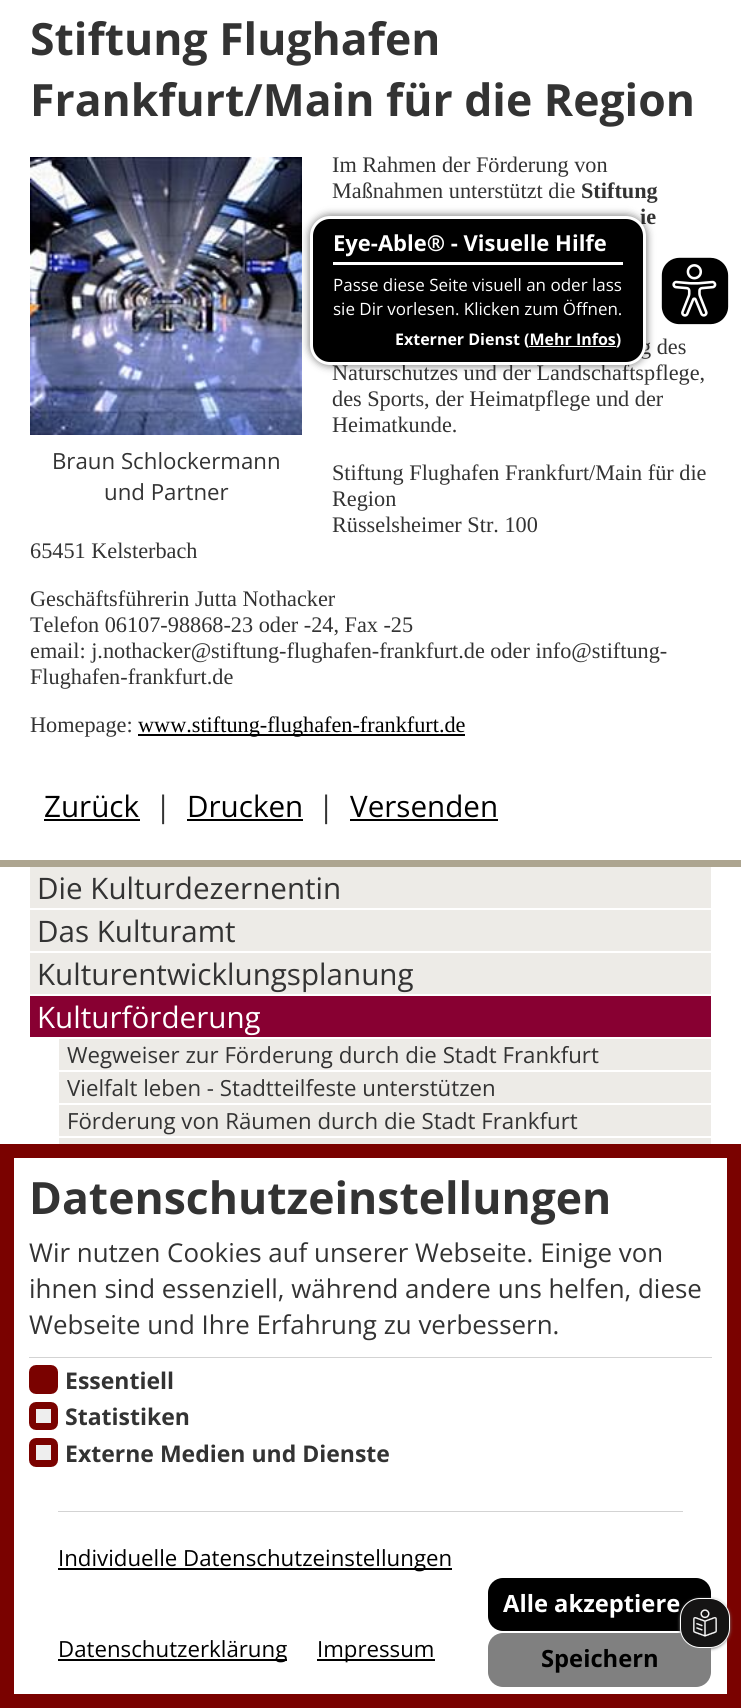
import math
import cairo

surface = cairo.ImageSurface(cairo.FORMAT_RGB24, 741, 1708)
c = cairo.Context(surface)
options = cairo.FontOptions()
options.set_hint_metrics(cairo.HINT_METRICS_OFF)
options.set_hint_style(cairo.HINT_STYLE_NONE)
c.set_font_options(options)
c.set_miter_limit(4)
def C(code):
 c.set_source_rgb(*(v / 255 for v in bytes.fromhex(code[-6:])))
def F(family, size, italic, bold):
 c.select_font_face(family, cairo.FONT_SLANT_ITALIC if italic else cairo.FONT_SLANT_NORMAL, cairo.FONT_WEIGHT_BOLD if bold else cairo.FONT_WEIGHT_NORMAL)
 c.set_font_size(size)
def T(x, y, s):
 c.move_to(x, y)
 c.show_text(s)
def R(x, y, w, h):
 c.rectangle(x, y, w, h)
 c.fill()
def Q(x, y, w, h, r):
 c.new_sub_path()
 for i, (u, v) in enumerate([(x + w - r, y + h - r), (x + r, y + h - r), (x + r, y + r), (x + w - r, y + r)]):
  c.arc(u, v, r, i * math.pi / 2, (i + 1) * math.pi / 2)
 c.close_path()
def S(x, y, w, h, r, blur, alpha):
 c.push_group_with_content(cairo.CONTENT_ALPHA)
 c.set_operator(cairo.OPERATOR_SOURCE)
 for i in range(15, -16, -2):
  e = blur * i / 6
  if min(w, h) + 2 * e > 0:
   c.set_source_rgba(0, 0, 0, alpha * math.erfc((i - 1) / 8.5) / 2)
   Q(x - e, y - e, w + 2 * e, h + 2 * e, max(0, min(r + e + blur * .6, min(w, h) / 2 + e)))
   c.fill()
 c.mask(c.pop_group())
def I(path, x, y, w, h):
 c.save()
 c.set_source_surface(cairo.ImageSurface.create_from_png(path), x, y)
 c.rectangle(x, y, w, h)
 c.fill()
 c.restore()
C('ffffff')
c.paint()
F('Open Sans',44.5,0,1)
C('333333')
T(30,55,'Stiftung Flughafen')
T(30,116,'Frankfurt/Main für die Region')
F('Liberation Serif',22.25,0,0)
T(332,172,'Im Rahmen der Förderung von')
T(332,198,'Maßnahmen unterstützt die')
F('Liberation Serif',22.25,0,1)
T(581,198,'Stiftung')
T(640,224,'ie')
F('Liberation Serif',22.25,0,0)
T(640,354,'g des')
T(332,380,'Naturschutzes und der Landschaftspflege,')
T(332,406,'des Sports, der Heimatpflege und der')
T(332,432,'Heimatkunde.')
T(332,480,'Stiftung Flughafen Frankfurt/Main für die')
T(332,506,'Region')
T(332,532,'Rüsselsheimer Str. 100')
T(30,558,'65451 Kelsterbach')
T(30,606,'Geschäftsführerin Jutta Nothacker')
T(30,632,'Telefon 06107-98868-23 oder -24, Fax -25')
T(30,658,'email: j.nothacker@stiftung-flughafen-frankfurt.de oder info@stiftung-')
T(30,684,'Flughafen-frankfurt.de')
T(30,732,'Homepage:')
C('000000')
R(138,734,327,2)
T(138,732,'www.stiftung-flughafen-frankfurt.de')
I('1.png',30,157,272,278)
F('Open Sans',22.25,0,0)
C('333333')
T(52,469,'Braun Schlockermann')
T(104,500,'und Partner')
F('Open Sans',29.6,0,0)
C('000000')
T(44,817,'Zurück')
R(44,819,96,2)
C('333333')
T(155,817,'|')
C('000000')
T(187,817,'Drucken')
R(187,819,116,2)
C('333333')
T(318,817,'|')
C('000000')
T(350,817,'Versenden')
R(350,819,148,2)
C('ada590')
R(0,860,741,7)
C('edebe7')
R(30,867,681,41)
C('333333')
T(37,899,'Die Kulturdezernentin')
C('edebe7')
R(30,910,681,41)
C('333333')
T(37,942,'Das Kulturamt')
C('edebe7')
R(30,953,681,41)
C('333333')
T(37,985,'Kulturentwicklungsplanung')
C('880032')
R(30,996,681,41)
C('ffffff')
T(37,1028,'Kulturförderung')
C('edebe7')
R(59,1039,652,31)
F('Open Sans',22.25,0,0)
C('333333')
T(67,1063,'Wegweiser zur Förderung durch die Stadt Frankfurt')
C('edebe7')
R(59,1072,652,31)
C('333333')
T(67,1096,'Vielfalt leben - Stadtteilfeste unterstützen')
C('edebe7')
R(59,1105,652,31)
C('333333')
T(67,1129,'Förderung von Räumen durch die Stadt Frankfurt')
C('edebe7')
R(59,1138,652,6)
C('000000')
S(309,215,338,151,21,4,.5)
C('000000')
Q(311.5,217.5,333,146,18.5)
c.fill_preserve()
C('ffffff')
c.set_line_width(3)
c.stroke()
R(333,262,290,3)
F('Open Sans',22,0,1)
T(333,251,'Eye-Able® - Visuelle Hilfe')
F('Open Sans',17,0,0)
T(333,291,'Passe diese Seite visuell an oder lass')
T(333,315,'sie Dir vorlesen. Klicken zum Öffnen.')
F('Open Sans',16,0,1)
T(395,345,'Externer Dienst (Mehr Infos)')
R(529,346,87,1)
I('2.png',660,257,69,68)
c.rectangle(7,1151,727,550)
C('7a0200')
c.set_line_width(14)
c.stroke()
F('Open Sans',44.5,0,1)
C('333333')
T(29,1214,'Datenschutzeinstellungen')
C('d3d3d3')
R(29,1357,683,1)
F('Open Sans',25.9,0,0)
C('333333')
T(29,1262,'Wir nutzen Cookies auf unserer Webseite. Einige von')
T(29,1298,'ihnen sind essenziell, während andere uns helfen, diese')
T(29,1334,'Webseite und Ihre Erfahrung zu verbessern.')
C('7a0200')
Q(32.5,1368.5,22,22,3.5)
c.fill_preserve()
c.set_line_width(7)
c.stroke()
F('Open Sans',23,0,1)
C('333333')
T(65,1389,'Essentiell')
C('eeeeee')
Q(32.5,1405.5,22,21,3.5)
c.fill_preserve()
C('7a0200')
c.stroke()
C('333333')
T(65,1425,'Statistiken')
C('eeeeee')
Q(32.5,1441.5,22,22,3.5)
c.fill_preserve()
C('7a0200')
c.stroke()
C('333333')
T(65,1462,'Externe Medien und Dienste')
C('d3d3d3')
R(58,1511,625,1)
C('000000')
R(58,1568,394,2)
F('Open Sans',22.25,0,0)
T(58,1566,'Individuelle Datenschutzeinstellungen')
R(58,1659,229,2)
T(58,1657,'Datenschutzerklärung')
R(317,1659,118,2)
T(317,1657,'Impressum')
Q(488,1578,223,53,15)
c.fill()
F('Open Sans',23.75,0,1)
C('ffffff')
T(503,1612,'Alle akzeptiere')
C('808080')
Q(488,1633,223,54,15)
c.fill()
C('000000')
T(541,1667,'Speichern')
C('848484')
S(680,1599,50,50,20,1.5,1)
C('151414')
Q(680.5,1598.5,49,49,19.5)
c.fill_preserve()
C('ffffff')
c.set_line_width(1)
c.stroke()
I('3.png',693,1609,24,28)
surface.write_to_png('o.png')
